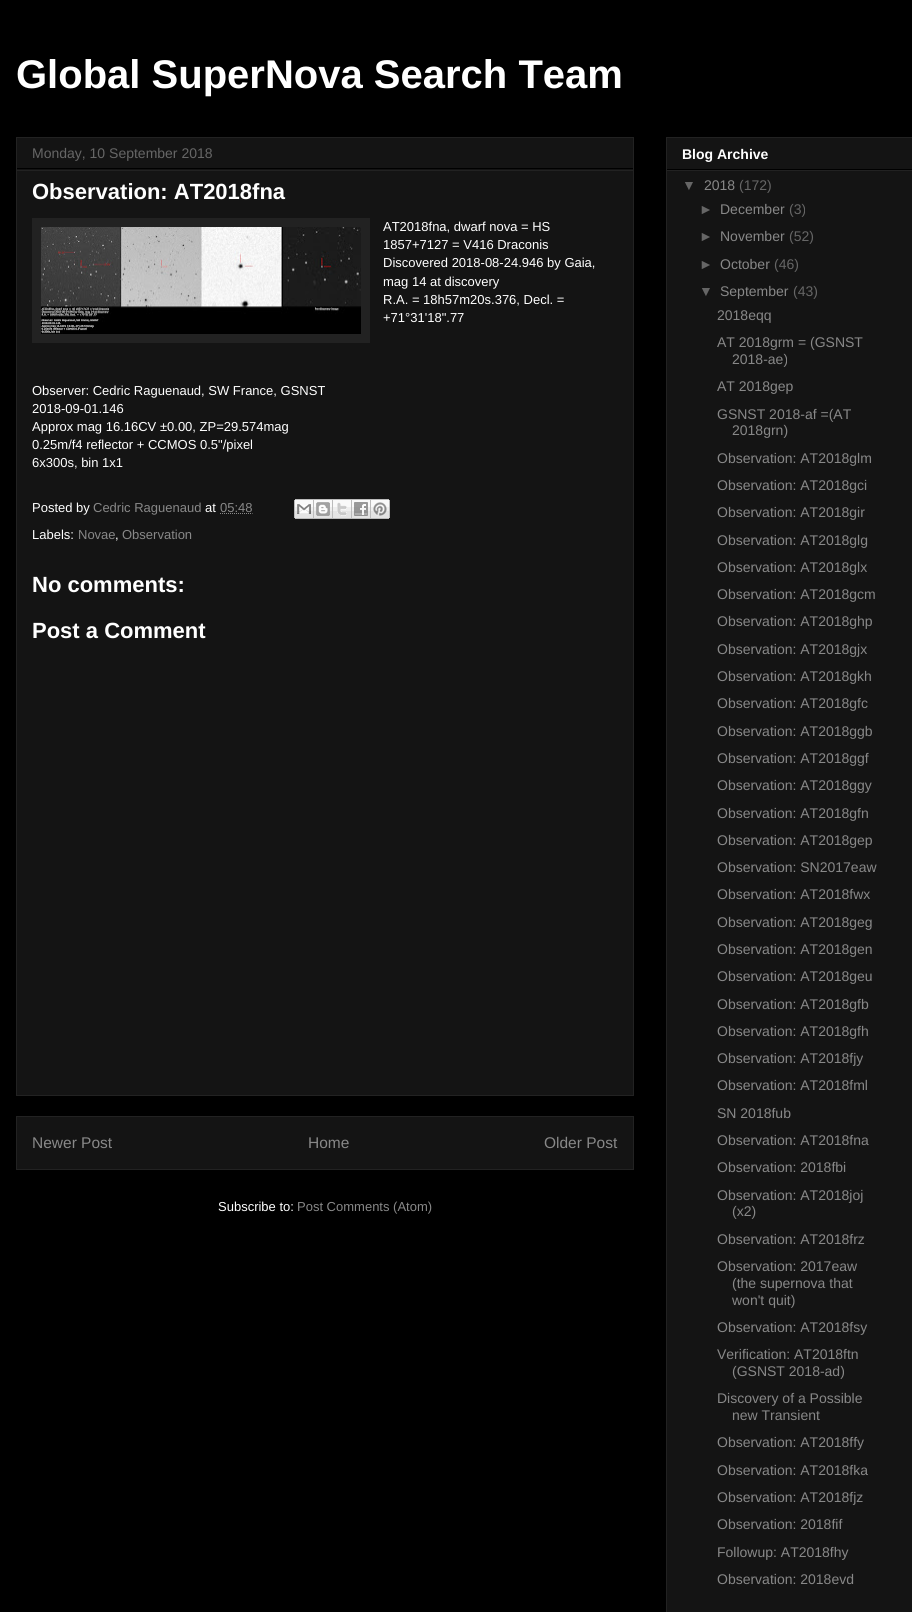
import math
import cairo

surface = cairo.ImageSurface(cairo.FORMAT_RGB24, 912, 1612)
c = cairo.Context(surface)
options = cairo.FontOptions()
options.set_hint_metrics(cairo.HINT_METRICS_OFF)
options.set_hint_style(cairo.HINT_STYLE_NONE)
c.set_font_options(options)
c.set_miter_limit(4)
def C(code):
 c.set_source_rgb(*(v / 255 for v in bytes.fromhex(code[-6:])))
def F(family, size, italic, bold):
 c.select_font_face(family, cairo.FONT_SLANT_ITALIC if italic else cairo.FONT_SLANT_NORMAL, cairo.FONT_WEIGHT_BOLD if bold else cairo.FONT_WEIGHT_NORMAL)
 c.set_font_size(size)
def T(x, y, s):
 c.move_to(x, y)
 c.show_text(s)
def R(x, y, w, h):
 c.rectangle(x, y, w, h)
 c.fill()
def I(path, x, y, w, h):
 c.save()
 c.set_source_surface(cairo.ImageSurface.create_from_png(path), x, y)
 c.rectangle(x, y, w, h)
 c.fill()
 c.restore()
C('000000')
c.paint()
F('Liberation Sans',40,0,1)
C('ffffff')
T(16,88,'Global SuperNova Search Team')
C('141414')
c.rectangle(16.5,137.5,617,958)
c.fill_preserve()
C('222222')
c.set_line_width(1)
c.stroke()
C('000000')
R(17,168,616,1)
F('Liberation Sans',14,0,0)
C('666666')
T(32,158,'Monday, 10 September 2018')
C('222222')
R(17,170,616,1)
F('Liberation Sans',22,0,1)
C('ffffff')
T(32,199,'Observation: AT2018fna')
C('222222')
R(32,218,338,125)
I('1.png',41,227,320,107)
F('Liberation Sans',13,0,0)
C('ffffff')
T(383,231,'AT2018fna, dwarf nova = HS')
T(383,249,'1857+7127 = V416 Draconis')
T(383,267,'Discovered 2018-08-24.946 by Gaia,')
T(383,286,'mag 14 at discovery')
T(383,304,'R.A. = 18h57m20s.376, Decl. =')
T(383,322,'+71°31\'18".77')
T(32,395,'Observer: Cedric Raguenaud, SW France, GSNST')
T(32,413,'2018-09-01.146')
T(32,431,'Approx mag 16.16CV ±0.00, ZP=29.574mag')
T(32,449,'0.25m/f4 reflector + CCMOS 0.5"/pixel')
T(32,467,'6x300s, bin 1x1')
T(32,512,'Posted by')
C('888888')
T(93,512,'Cedric Raguenaud')
C('ffffff')
T(205,512,'at')
C('888888')
T(220,512,'05:48')
c.new_path()
c.move_to(220,513.5)
c.line_to(252.5,513.5)
c.set_dash([1,1])
c.stroke()
I('2.png',294,499,20,20)
I('3.png',314,499,19,20)
I('4.png',333,499,19,20)
I('5.png',352,499,19,20)
I('6.png',371,499,19,20)
C('ffffff')
T(32,539,'Labels:')
C('888888')
T(78,539,'Novae')
C('ffffff')
T(115,539,',')
C('888888')
T(122,539,'Observation')
F('Liberation Sans',22,0,1)
C('ffffff')
T(32,592,'No comments:')
T(32,638,'Post a Comment')
C('141414')
c.rectangle(16.5,1116.5,617,53)
c.fill_preserve()
C('222222')
c.set_dash([])
c.stroke()
F('Liberation Sans',15.5,0,0)
C('888888')
T(32,1148,'Newer Post')
T(308,1148,'Home')
T(544,1148,'Older Post')
F('Liberation Sans',13,0,0)
C('ffffff')
T(218,1211,'Subscribe to:')
C('888888')
T(297,1211,'Post Comments (Atom)')
C('141414')
c.rectangle(666.5,137.5,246,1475)
c.fill_preserve()
C('222222')
c.stroke()
C('000000')
R(667,169,245,1)
F('Liberation Sans',14,0,1)
C('ffffff')
T(682,159,'Blog Archive')
C('222222')
R(667,170,245,1)
F('Liberation Sans',14,0,0)
C('666666')
T(682,190,'▼')
C('888888')
T(704,190,'2018')
C('666666')
T(739,190,'(172)')
T(699,214,'►')
C('888888')
T(720,214,'December')
C('666666')
T(789,214,'(3)')
T(699,241,'►')
C('888888')
T(720,241,'November')
C('666666')
T(789,241,'(52)')
T(699,269,'►')
C('888888')
T(720,269,'October')
C('666666')
T(774,269,'(46)')
T(699,296,'▼')
C('888888')
T(720,296,'September')
C('666666')
T(793,296,'(43)')
C('888888')
T(717,320,'2018eqq')
T(717,347,'AT 2018grm = (GSNST')
T(732,364,'2018-ae)')
T(717,391,'AT 2018gep')
T(717,419,'GSNST 2018-af =(AT')
T(732,435,'2018grn)')
T(717,463,'Observation: AT2018glm')
T(717,490,'Observation: AT2018gci')
T(717,517,'Observation: AT2018gir')
T(717,545,'Observation: AT2018glg')
T(717,572,'Observation: AT2018glx')
T(717,599,'Observation: AT2018gcm')
T(717,626,'Observation: AT2018ghp')
T(717,654,'Observation: AT2018gjx')
T(717,681,'Observation: AT2018gkh')
T(717,708,'Observation: AT2018gfc')
T(717,736,'Observation: AT2018ggb')
T(717,763,'Observation: AT2018ggf')
T(717,790,'Observation: AT2018ggy')
T(717,818,'Observation: AT2018gfn')
T(717,845,'Observation: AT2018gep')
T(717,872,'Observation: SN2017eaw')
T(717,899,'Observation: AT2018fwx')
T(717,927,'Observation: AT2018geg')
T(717,954,'Observation: AT2018gen')
T(717,981,'Observation: AT2018geu')
T(717,1009,'Observation: AT2018gfb')
T(717,1036,'Observation: AT2018gfh')
T(717,1063,'Observation: AT2018fjy')
T(717,1090,'Observation: AT2018fml')
T(717,1118,'SN 2018fub')
T(717,1145,'Observation: AT2018fna')
T(717,1172,'Observation: 2018fbi')
T(717,1200,'Observation: AT2018joj')
T(732,1216,'(x2)')
T(717,1244,'Observation: AT2018frz')
T(717,1271,'Observation: 2017eaw')
T(732,1288,'(the supernova that')
T(732,1305,'won\'t quit)')
T(717,1332,'Observation: AT2018fsy')
T(717,1359,'Verification: AT2018ftn')
T(732,1376,'(GSNST 2018-ad)')
T(717,1403,'Discovery of a Possible')
T(732,1420,'new Transient')
T(717,1447,'Observation: AT2018ffy')
T(717,1475,'Observation: AT2018fka')
T(717,1502,'Observation: AT2018fjz')
T(717,1529,'Observation: 2018fif')
T(717,1557,'Followup: AT2018fhy')
T(717,1584,'Observation: 2018evd')
surface.write_to_png('o.png')
